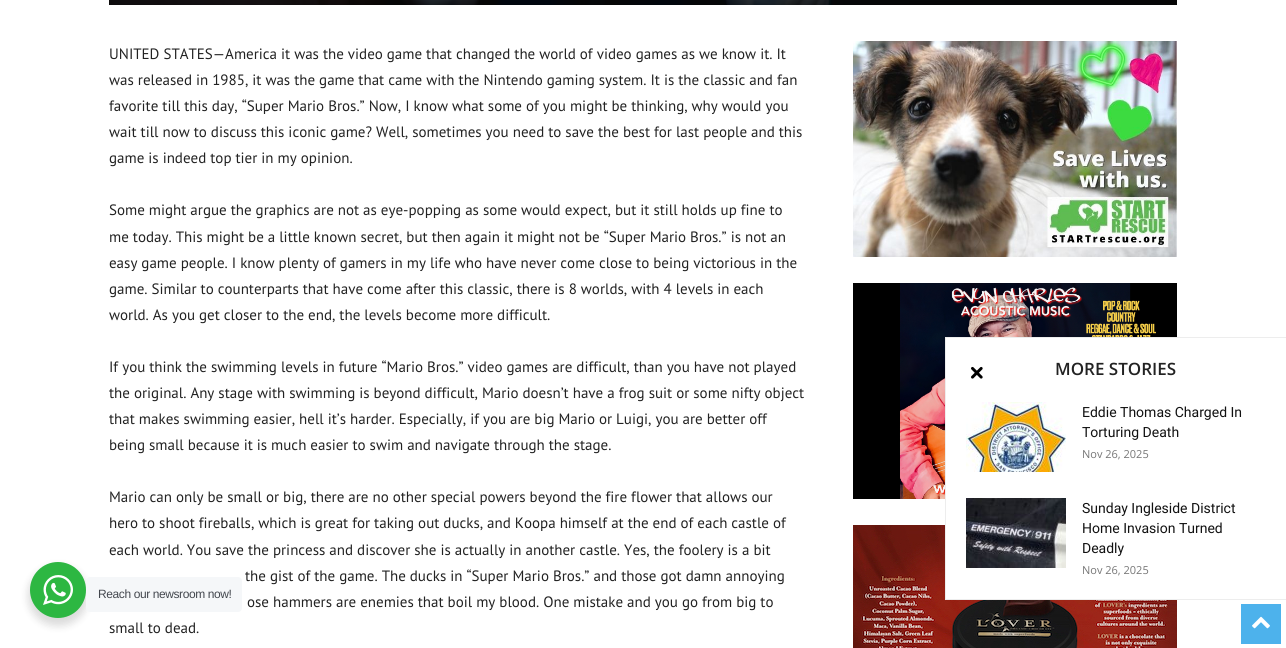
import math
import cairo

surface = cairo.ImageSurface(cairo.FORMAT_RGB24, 1286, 648)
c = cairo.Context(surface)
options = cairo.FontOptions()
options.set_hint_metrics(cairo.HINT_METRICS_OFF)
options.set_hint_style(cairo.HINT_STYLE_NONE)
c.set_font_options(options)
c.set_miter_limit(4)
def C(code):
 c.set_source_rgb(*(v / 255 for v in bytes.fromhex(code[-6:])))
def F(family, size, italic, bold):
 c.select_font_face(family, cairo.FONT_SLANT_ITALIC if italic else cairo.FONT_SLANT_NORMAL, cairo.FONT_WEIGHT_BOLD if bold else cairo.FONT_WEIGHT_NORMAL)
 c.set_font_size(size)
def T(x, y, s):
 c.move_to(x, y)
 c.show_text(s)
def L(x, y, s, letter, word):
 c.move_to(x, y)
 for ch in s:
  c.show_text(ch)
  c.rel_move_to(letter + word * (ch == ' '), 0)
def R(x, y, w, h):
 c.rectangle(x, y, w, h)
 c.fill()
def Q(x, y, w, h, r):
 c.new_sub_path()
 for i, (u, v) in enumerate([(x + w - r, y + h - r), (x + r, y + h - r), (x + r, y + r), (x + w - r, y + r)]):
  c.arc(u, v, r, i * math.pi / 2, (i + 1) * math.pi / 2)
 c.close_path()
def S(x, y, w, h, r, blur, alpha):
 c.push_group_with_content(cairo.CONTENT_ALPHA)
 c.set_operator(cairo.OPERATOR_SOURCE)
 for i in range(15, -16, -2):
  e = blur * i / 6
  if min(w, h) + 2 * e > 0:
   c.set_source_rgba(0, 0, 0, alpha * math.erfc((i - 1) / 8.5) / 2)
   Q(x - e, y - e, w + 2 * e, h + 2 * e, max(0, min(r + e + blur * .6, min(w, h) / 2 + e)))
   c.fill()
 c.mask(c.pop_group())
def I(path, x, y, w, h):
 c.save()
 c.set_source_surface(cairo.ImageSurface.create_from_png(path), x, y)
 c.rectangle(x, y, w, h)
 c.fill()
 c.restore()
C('ffffff')
c.paint()
I('1.png',109,0,1068,5)
F('PT Sans',15,0,0)
C('222222')
T(109,59,'UNITED STATES—America it was the video game that changed the world of video games as we know it. It')
T(109,85,'was released in 1985, it was the game that came with the Nintendo gaming system. It is the classic and fan')
T(109,111,'favorite till this day, “Super Mario Bros.” Now, I know what some of you might be thinking, why would you')
T(109,137,'wait till now to discuss this iconic game? Well, sometimes you need to save the best for last people and this')
T(109,163,'game is indeed top tier in my opinion.')
T(109,215,'Some might argue the graphics are not as eye-popping as some would expect, but it still holds up fine to')
T(109,242,'me today. This might be a little known secret, but then again it might not be “Super Mario Bros.” is not an')
T(109,268,'easy game people. I know plenty of gamers in my life who have never come close to being victorious in the')
T(109,294,'game. Similar to counterparts that have come after this classic, there is 8 worlds, with 4 levels in each')
T(109,320,'world. As you get closer to the end, the levels become more difficult.')
T(109,372,'If you think the swimming levels in future “Mario Bros.” video games are difficult, than you have not played')
T(109,398,'the original. Any stage with swimming is beyond difficult, Mario doesn’t have a frog suit or some nifty object')
T(109,424,'that makes swimming easier, hell it’s harder. Especially, if you are big Mario or Luigi, you are better off')
T(109,450,'being small because it is much easier to swim and navigate through the stage.')
T(109,502,'Mario can only be small or big, there are no other special powers beyond the fire flower that allows our')
T(109,528,'hero to shoot fireballs, which is great for taking out ducks, and Koopa himself at the end of each castle of')
T(109,555,'each world. You save the princess and discover she is actually in another castle. Yes, the foolery is a bit')
T(245,581,'the gist of the game. The ducks in “Super Mario Bros.” and those got damn annoying')
T(247,607,'ose hammers are enemies that boil my blood. One mistake and you go from big to')
T(109,633,'small to dead.')
I('2.png',853,41,324,216)
I('3.png',853,283,324,216)
I('4.png',853,525,324,123)
C('ffffff')
R(946,338,231,261)
C('ededed')
R(945,337,341,1)
R(945,599,341,1)
R(945,337,1,263)
I('5.png',971,366,12,13)
F('Open Sans SemiBold',17,0,0)
C('222222')
T(1055,375,'MORE STORIES')
I('6.png',966,402,100,70)
F('Roboto',14,0,0)
C('111111')
T(1082,417,'Eddie Thomas Charged In')
T(1082,437,'Torturing Death')
F('Open Sans',11,0,0)
C('767676')
T(1082,458,'Nov 26, 2025')
I('7.png',966,498,100,70)
F('Roboto',14,0,0)
C('111111')
T(1082,513,'Sunday Ingleside District')
T(1082,533,'Home Invasion Turned')
T(1082,553,'Deadly')
F('Open Sans',11,0,0)
C('767676')
T(1082,574,'Nov 26, 2025')
C('000000')
S(28,566,60,60,30,4,.14)
C('2db742')
c.arc(58,590,28,0,2 * math.pi)
c.fill()
I('8.png',43,575,30,30)
C('f5f7f9')
Q(86,577,156,35,4)
c.fill()
F('Liberation Sans',12,0,0)
C('43474e')
L(98,598,'Reach our newsroom now!',-.4,0)
C('4db2ec')
R(1241,604,40,40)
I('9.png',1252,616,18,13)
surface.write_to_png('o.png')
